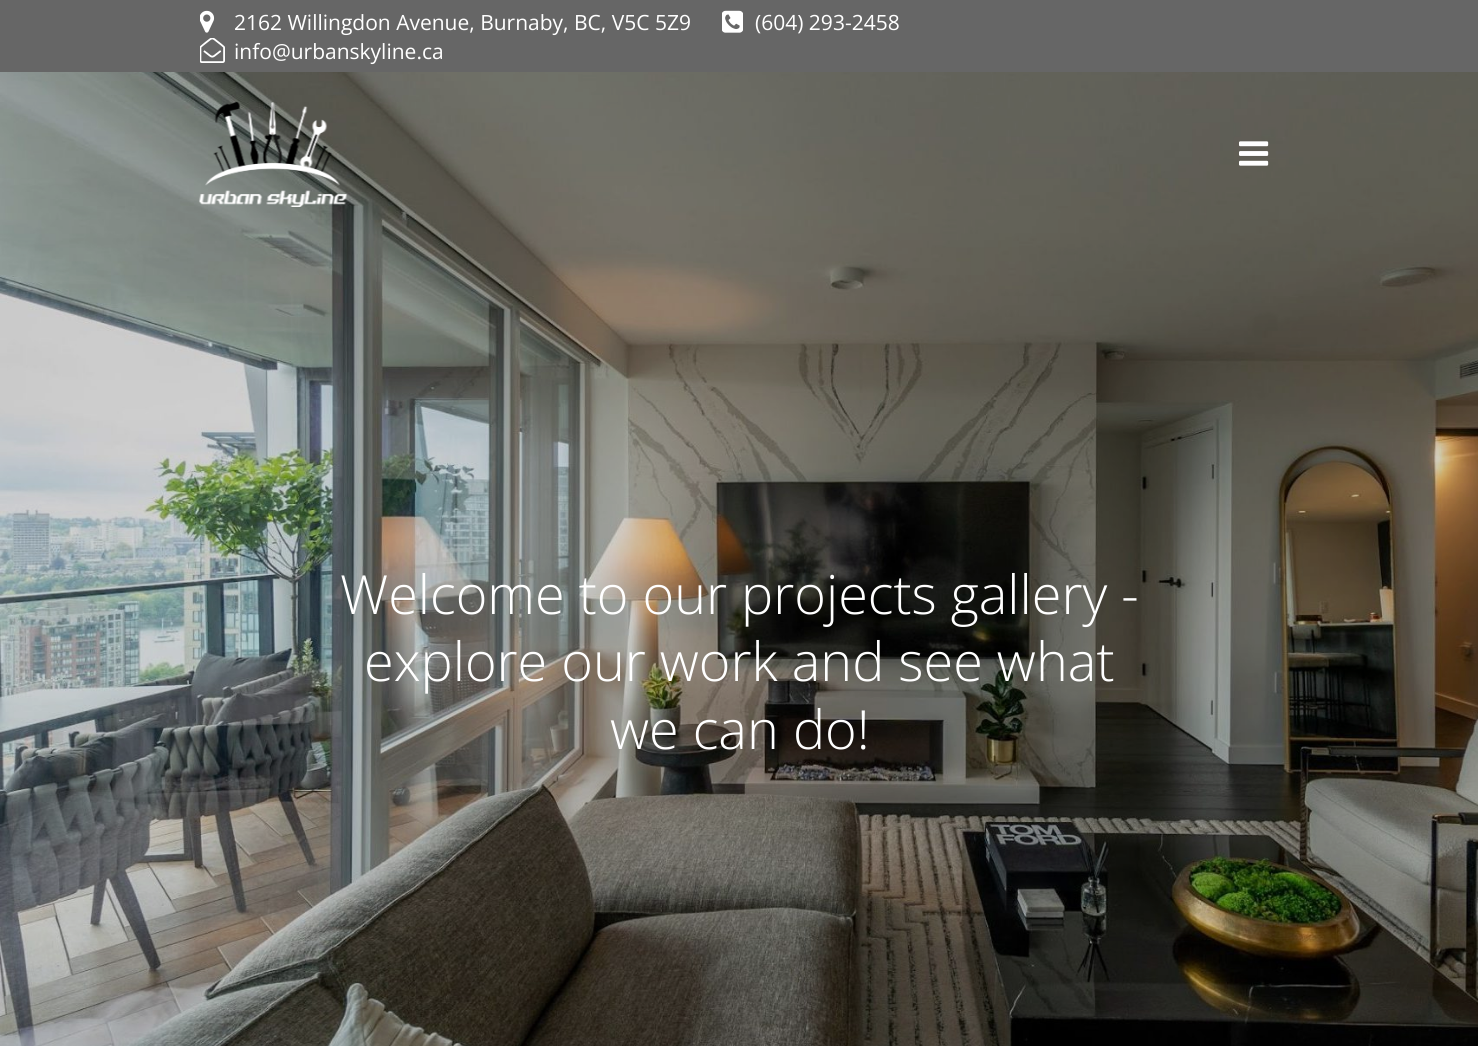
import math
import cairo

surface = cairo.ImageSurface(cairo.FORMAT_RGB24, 1478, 1046)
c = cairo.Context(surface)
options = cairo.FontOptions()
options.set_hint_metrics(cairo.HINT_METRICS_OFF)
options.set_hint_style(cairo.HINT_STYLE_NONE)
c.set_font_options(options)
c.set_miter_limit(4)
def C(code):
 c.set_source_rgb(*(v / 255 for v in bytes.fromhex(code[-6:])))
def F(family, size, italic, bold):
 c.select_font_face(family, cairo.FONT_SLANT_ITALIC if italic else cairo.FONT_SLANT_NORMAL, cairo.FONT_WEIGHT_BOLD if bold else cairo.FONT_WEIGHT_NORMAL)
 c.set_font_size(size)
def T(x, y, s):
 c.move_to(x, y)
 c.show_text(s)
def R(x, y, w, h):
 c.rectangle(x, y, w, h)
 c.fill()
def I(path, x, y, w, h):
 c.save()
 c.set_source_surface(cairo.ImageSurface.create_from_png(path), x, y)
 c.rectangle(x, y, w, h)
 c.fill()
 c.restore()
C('ffffff')
c.paint()
C('666666')
R(0,0,1478,72)
I('1.png',200,10,15,23)
F('Open Sans',21,0,0)
C('ffffff')
T(234,30,'2162 Willingdon Avenue, Burnaby, BC, V5C 5Z9')
I('2.png',722,10,21,23)
T(755,30,'(604) 293-2458')
I('3.png',200,38,25,25)
T(234,59,'info@urbanskyline.ca')
I('6.png',0,72,1478,974)
I('4.png',199,102,148,105)
I('5.png',1239,141,30,25)
F('Open Sans Light',54,0,0)
T(340,614,'Welcome to our projects gallery -')
T(364,681,'explore our work and see what')
T(610,749,'we can do!')
surface.write_to_png('o.png')
